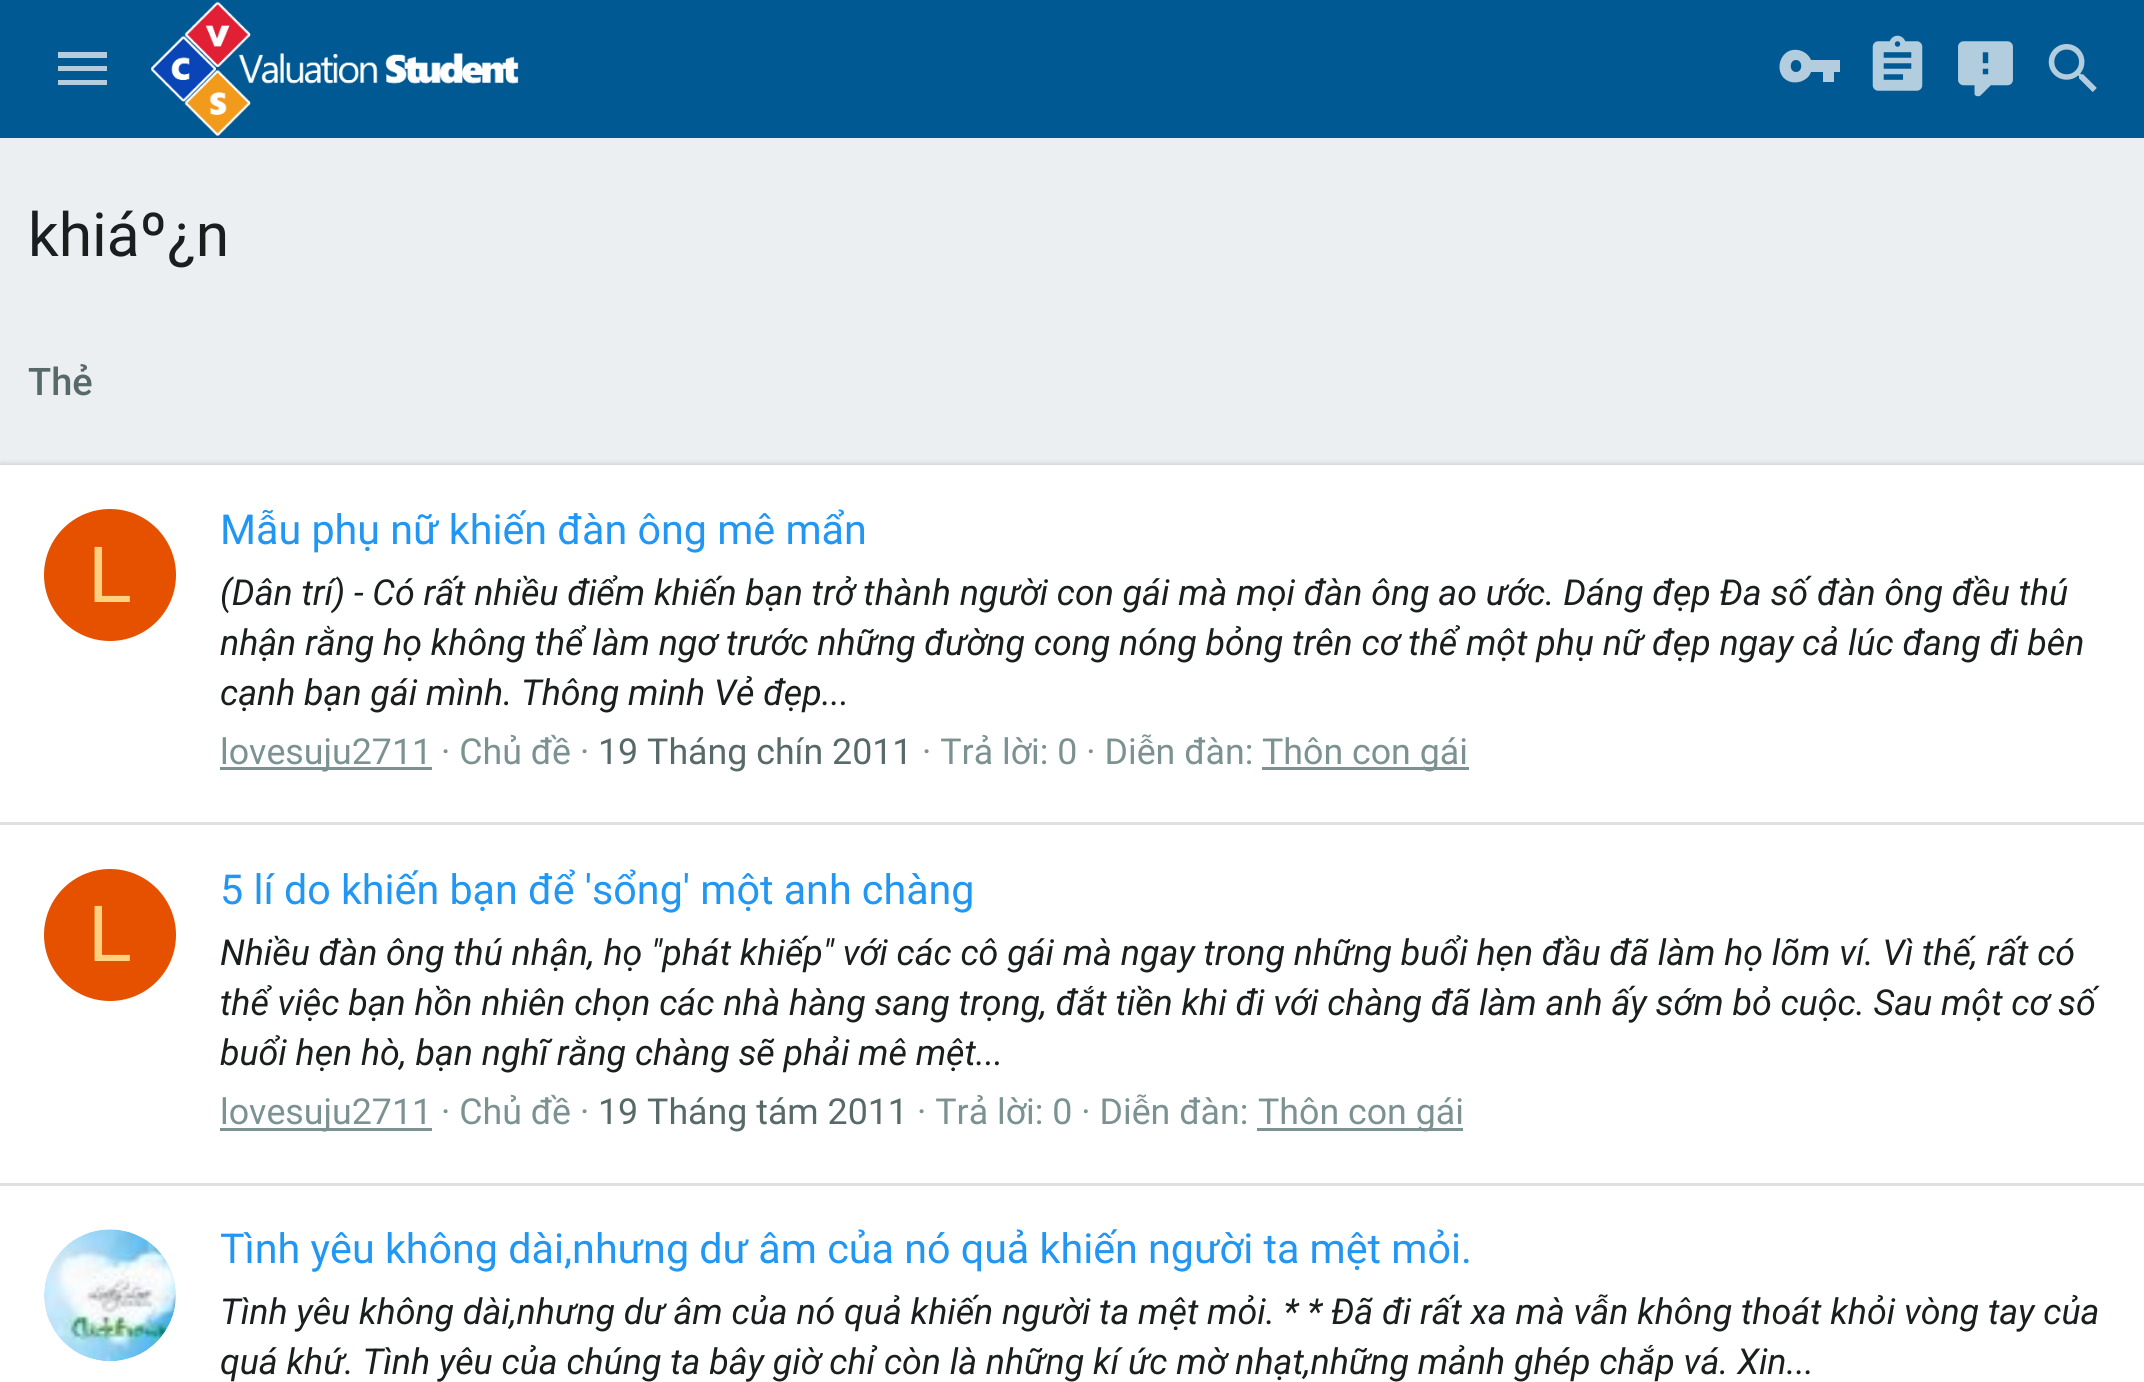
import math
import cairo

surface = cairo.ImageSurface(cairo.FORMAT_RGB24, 2144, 1382)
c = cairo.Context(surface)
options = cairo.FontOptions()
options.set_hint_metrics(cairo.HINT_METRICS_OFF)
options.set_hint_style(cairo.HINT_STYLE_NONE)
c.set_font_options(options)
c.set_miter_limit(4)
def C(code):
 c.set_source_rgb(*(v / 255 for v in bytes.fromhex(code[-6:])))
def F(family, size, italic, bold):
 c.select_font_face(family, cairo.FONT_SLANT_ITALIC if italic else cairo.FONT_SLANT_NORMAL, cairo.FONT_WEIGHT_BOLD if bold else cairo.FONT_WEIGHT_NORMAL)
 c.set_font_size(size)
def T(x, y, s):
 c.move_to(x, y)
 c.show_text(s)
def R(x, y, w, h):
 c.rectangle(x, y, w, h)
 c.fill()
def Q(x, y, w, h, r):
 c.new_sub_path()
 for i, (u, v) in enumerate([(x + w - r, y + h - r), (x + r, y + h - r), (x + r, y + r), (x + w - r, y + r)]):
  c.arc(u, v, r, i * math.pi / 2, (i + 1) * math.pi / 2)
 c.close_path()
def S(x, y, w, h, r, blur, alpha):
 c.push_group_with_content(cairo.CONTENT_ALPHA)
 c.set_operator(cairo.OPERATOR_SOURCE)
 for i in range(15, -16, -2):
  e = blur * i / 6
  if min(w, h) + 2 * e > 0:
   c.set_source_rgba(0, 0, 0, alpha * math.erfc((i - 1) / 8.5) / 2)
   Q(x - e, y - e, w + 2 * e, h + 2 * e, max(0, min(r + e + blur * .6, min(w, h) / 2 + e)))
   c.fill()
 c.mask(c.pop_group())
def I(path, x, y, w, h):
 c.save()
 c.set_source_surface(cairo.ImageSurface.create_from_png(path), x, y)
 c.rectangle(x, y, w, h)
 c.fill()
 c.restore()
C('eceff1')
c.paint()
C('005992')
R(0,0,2144,138)
C('b3cdde')
c.new_path()
c.move_to(58,52)
c.line_to(107,52)
c.line_to(107,58)
c.line_to(58,58)
c.close_path()
c.move_to(58,66)
c.line_to(107,66)
c.line_to(107,71)
c.line_to(58,71)
c.close_path()
c.move_to(58,80)
c.line_to(107,80)
c.line_to(107,85)
c.line_to(58,85)
c.close_path()
c.fill()
I('1.png',151,1,368,135)
c.new_path()
c.move_to(1796,72)
c.curve_to(1789,72,1789,60,1796,60)
c.curve_to(1803,60,1803,72,1796,72)
c.close_path()
c.move_to(1811,60)
c.curve_to(1809,55,1804,51,1798,50)
c.curve_to(1778,47,1772,77,1791,82)
c.curve_to(1796,83,1801,82,1804,80)
c.curve_to(1808,78,1810,75,1811,72)
c.line_to(1823,72)
c.line_to(1823,82)
c.line_to(1834,82)
c.line_to(1834,72)
c.line_to(1840,72)
c.line_to(1840,60)
c.close_path()
c.fill()
I('2.png',1872,35,51,56)
I('3.png',1958,41,55,56)
I('4.png',2048,44,49,48)
F('Roboto',60.5,0,0)
C('191e1e')
T(28,256,'khiáº¿n')
F('Roboto Medium',38,0,0)
C('586969')
T(28,395,'Thẻ')
C('000000')
S(0,468,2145,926,0,4,.2)
S(0,465,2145,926,0,3,.14)
C('ffffff')
R(0,465,2144,917)
C('e65100')
c.arc(110,575,66,0,2 * math.pi)
c.fill()
F('Liberation Sans',80,0,0)
C('ffd180')
T(88,602,'L')
F('Roboto',41.25,0,0)
C('2196f3')
T(220,544,'Mẫu phụ nữ khiến đàn ông mê mẩn')
F('Roboto',35.75,1,0)
C('191e1e')
T(220,605,'(Dân trí) - Có rất nhiều điểm khiến bạn trở thành người con gái mà mọi đàn ông ao ước. Dáng đẹp Đa số đàn ông đều thú')
T(220,655,'nhận rằng họ không thể làm ngơ trước những đường cong nóng bỏng trên cơ thể một phụ nữ đẹp ngay cả lúc đang đi bên')
T(220,705,'cạnh bạn gái mình. Thông minh Vẻ đẹp...')
C('7c9292')
R(220,767,212,3)
F('Roboto',35.75,0,0)
T(220,764,'lovesuju2711 · Chủ đề ·')
C('586969')
T(598,764,'19 Tháng chín 2011')
C('7c9292')
T(922,764,'· Trả lời: 0 · Diễn đàn:')
R(1262,767,207,3)
T(1262,764,'Thôn con gái')
C('e0e0e0')
R(0,822,2144,3)
C('e65100')
c.new_path()
c.arc(110,935,66,0,2 * math.pi)
c.fill()
F('Liberation Sans',80,0,0)
C('ffd180')
T(88,961,'L')
F('Roboto',41.25,0,0)
C('2196f3')
T(220,904,'5 lí do khiến bạn để \'sổng\' một anh chàng')
F('Roboto',35.75,1,0)
C('191e1e')
T(220,965,'Nhiều đàn ông thú nhận, họ "phát khiếp" với các cô gái mà ngay trong những buổi hẹn đầu đã làm họ lõm ví. Vì thế, rất có')
T(220,1015,'thể việc bạn hồn nhiên chọn các nhà hàng sang trọng, đắt tiền khi đi với chàng đã làm anh ấy sớm bỏ cuộc. Sau một cơ số')
T(220,1065,'buổi hẹn hò, bạn nghĩ rằng chàng sẽ phải mê mệt...')
C('7c9292')
R(220,1128,212,3)
F('Roboto',35.75,0,0)
T(220,1124,'lovesuju2711 · Chủ đề ·')
C('586969')
T(598,1124,'19 Tháng tám 2011')
C('7c9292')
T(917,1124,'· Trả lời: 0 · Diễn đàn:')
R(1257,1128,206,3)
T(1258,1124,'Thôn con gái')
C('e0e0e0')
R(0,1183,2144,3)
I('5.png',44,1229,132,132)
F('Roboto',41.25,0,0)
C('2196f3')
T(220,1263,'Tình yêu không dài,nhưng dư âm của nó quả khiến người ta mệt mỏi.')
F('Roboto',35.75,1,0)
C('191e1e')
T(220,1324,'Tình yêu không dài,nhưng dư âm của nó quả khiến người ta mệt mỏi. * * Đã đi rất xa mà vẫn không thoát khỏi vòng tay của')
T(220,1374,'quá khứ. Tình yêu của chúng ta bây giờ chỉ còn là những kí ức mờ nhạt,những mảnh ghép chắp vá. Xin...')
surface.write_to_png('o.png')
